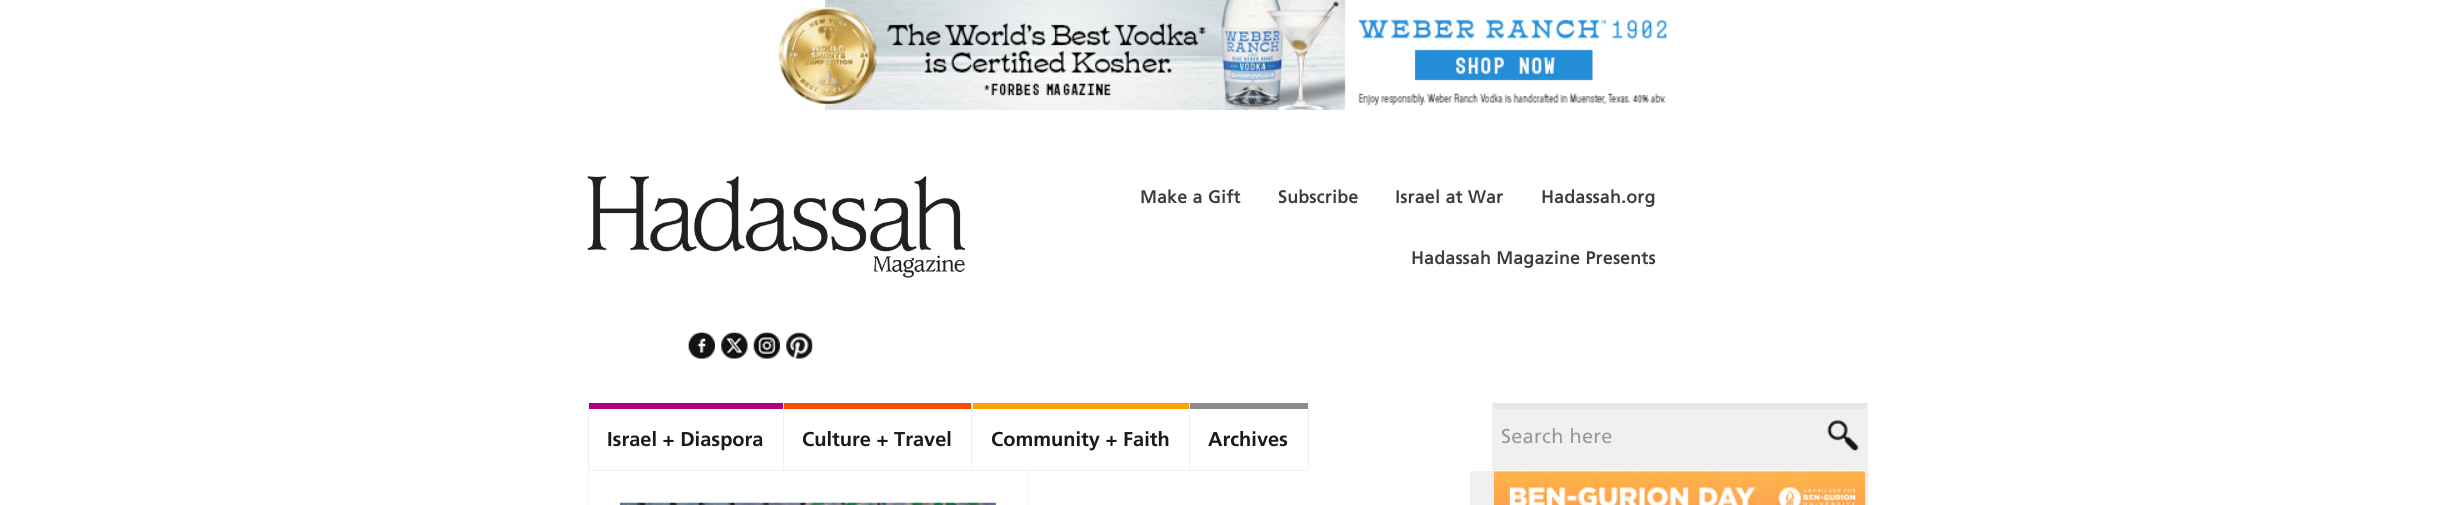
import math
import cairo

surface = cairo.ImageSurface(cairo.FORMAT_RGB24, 2453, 505)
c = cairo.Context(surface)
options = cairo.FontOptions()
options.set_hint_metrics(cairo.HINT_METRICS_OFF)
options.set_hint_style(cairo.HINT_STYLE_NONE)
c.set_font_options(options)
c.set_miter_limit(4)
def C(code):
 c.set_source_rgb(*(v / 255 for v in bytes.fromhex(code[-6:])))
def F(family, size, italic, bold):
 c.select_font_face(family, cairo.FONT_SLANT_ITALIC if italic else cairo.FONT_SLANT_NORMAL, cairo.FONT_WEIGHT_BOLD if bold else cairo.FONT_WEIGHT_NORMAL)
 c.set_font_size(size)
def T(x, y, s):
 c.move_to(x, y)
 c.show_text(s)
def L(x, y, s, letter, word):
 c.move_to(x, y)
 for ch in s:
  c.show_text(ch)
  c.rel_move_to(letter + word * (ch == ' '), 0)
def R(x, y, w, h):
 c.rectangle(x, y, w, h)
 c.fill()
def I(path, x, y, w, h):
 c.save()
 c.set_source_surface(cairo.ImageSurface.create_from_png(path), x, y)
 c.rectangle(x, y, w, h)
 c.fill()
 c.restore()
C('ffffff')
c.paint()
I('1.png',778,0,889,110)
I('2.png',587,176,378,102)
F('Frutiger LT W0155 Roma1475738',17.5,0,1)
C('3c3c3c')
L(1140,203,'Make a Gift',.4,0)
L(1278,203,'Subscribe',.4,0)
L(1395,203,'Israel at War',.4,0)
L(1541,203,'Hadassah.org',.4,0)
L(1411,264,'Hadassah Magazine Presents',.4,0)
I('3.png',687,332,28,27)
I('4.png',721,332,27,27)
I('5.png',753,332,27,27)
I('6.png',786,332,27,27)
C('f0f0f0')
R(783,403,1,68)
R(588,470,196,1)
R(588,403,1,68)
C('ac007c')
R(589,403,194,6)
F('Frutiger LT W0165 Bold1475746',20,0,1)
C('1a1a1a')
T(607,446,'Israel + Diaspora')
C('f0f0f0')
R(971,403,1,68)
R(784,470,189,1)
C('fa4c00')
R(784,403,187,6)
C('1a1a1a')
T(802,446,'Culture + Travel')
C('f0f0f0')
R(1189,403,1,68)
R(973,470,217,1)
C('ff9f00')
R(973,403,216,6)
C('1a1a1a')
T(991,446,'Community + Faith')
C('f0f0f0')
R(1308,403,1,68)
R(1190,470,119,1)
C('8b8b8b')
R(1190,403,118,6)
C('1a1a1a')
T(1208,446,'Archives')
C('f0f0f0')
R(1493,403,375,67)
c.save()
c.rectangle(588,403,1280,68)
c.clip()
C('e6e6e6')
c.new_path()
c.move_to(1492,402)
c.line_to(1868,402)
c.line_to(1866,409)
c.line_to(1494,409)
c.close_path()
c.fill()
c.restore()
c.new_path()
c.move_to(1492,470)
c.line_to(1492,402)
c.line_to(1494,409)
c.line_to(1494,470)
c.close_path()
c.fill()
F('Frutiger LT W0155 Roma1475738',20,0,0)
C('999999')
L(1501,443,'Search here',.25,0)
I('7.png',1827,419,32,32)
C('f0f0f0')
R(1471,471,397,34)
C('f3f3f3')
R(1470,471,1,34)
R(588,471,1,34)
R(1028,471,1,34)
I('8.png',620,502,377,3)
R(1866,471,1,34)
R(1493,471,1,34)
I('9.png',1493,471,372,34)
surface.write_to_png('o.png')
